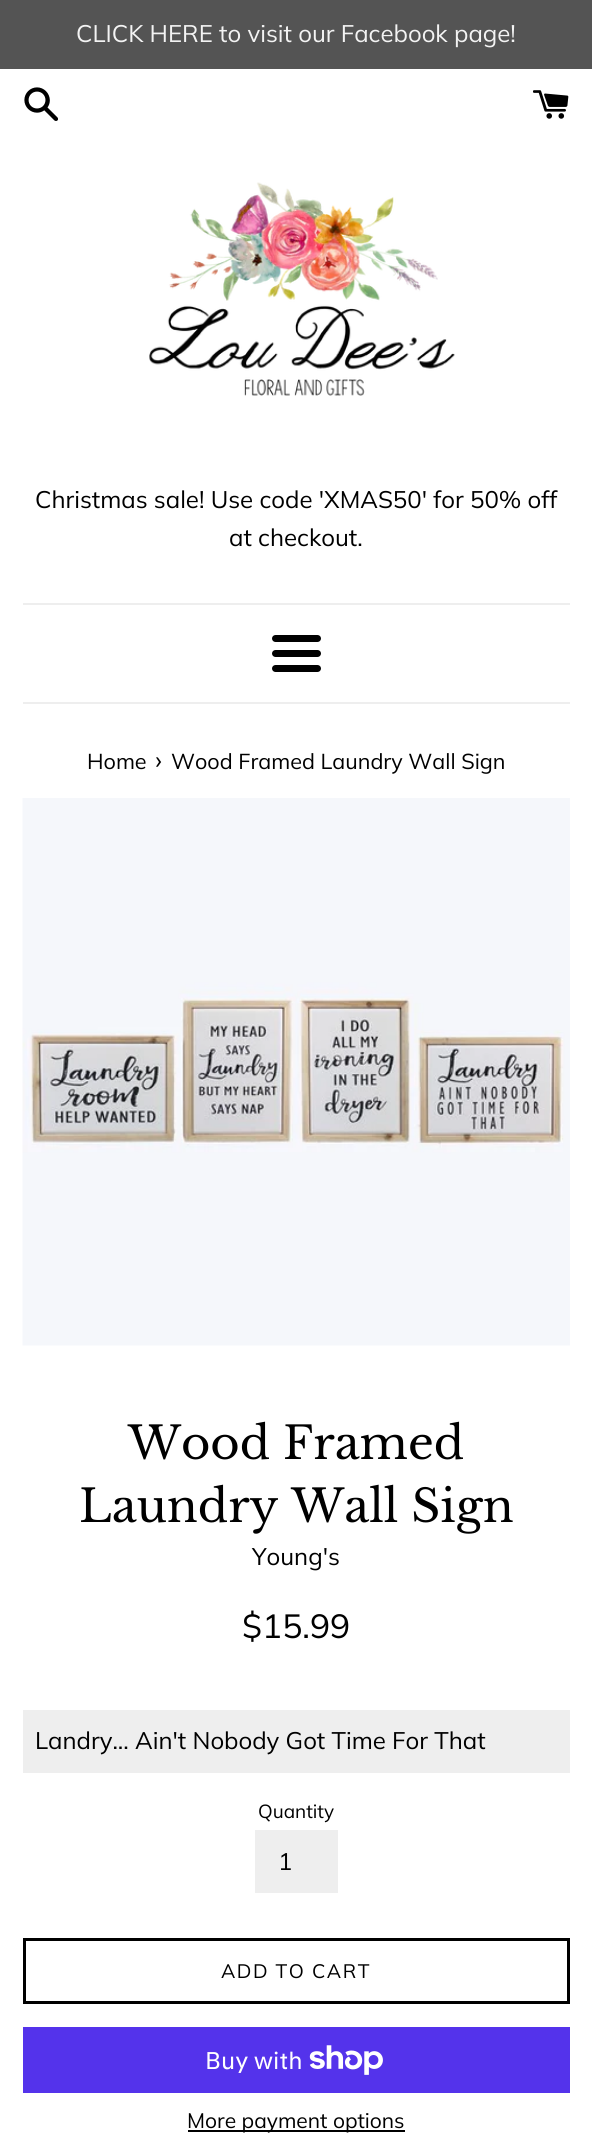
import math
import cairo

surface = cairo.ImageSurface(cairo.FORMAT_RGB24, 592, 2153)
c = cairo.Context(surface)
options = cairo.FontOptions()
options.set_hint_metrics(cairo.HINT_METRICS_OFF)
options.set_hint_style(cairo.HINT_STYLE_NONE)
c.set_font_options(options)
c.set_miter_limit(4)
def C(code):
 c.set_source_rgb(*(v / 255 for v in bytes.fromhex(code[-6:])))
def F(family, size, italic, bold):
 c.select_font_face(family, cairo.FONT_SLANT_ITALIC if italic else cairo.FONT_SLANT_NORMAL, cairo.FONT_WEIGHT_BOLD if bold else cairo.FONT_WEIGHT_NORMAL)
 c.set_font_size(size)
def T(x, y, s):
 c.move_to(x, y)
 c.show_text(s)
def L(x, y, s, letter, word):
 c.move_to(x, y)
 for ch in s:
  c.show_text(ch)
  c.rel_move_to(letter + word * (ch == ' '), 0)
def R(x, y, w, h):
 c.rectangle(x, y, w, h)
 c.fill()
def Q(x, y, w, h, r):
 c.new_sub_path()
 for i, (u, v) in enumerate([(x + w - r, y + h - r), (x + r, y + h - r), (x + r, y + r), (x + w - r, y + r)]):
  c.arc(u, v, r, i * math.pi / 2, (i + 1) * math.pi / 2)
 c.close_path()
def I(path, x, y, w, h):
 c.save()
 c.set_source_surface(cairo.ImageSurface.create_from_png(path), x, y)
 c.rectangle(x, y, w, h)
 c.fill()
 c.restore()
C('ffffff')
c.paint()
C('545454')
R(0,0,592,69)
F('Muli',24,0,0)
C('f3f3f3')
T(76,42,'CLICK HERE to visit our Facebook page!')
I('1.png',24,87,34,34)
I('2.png',533,90,36,29)
I('3.png',149,182,306,214)
C('000000')
T(35,508,'Christmas sale! Use code \'XMAS50\' for 50% off')
T(229,546,'at checkout.')
C('eeeeee')
R(23,603,547,2)
C('000000')
Q(272,635,49,7,3.5)
c.fill()
Q(272,650,49,7,3.5)
c.fill()
Q(272,665,49,7,3.5)
c.fill()
C('eeeeee')
R(23,702,547,2)
F('Muli',21.6,0,0)
C('000000')
T(87,769,'Home')
F('Muli',26,0,0)
T(155,769,'›')
F('Muli',21.6,0,0)
T(171,769,'Wood Framed Laundry Wall Sign')
I('4.png',22,798,548,548)
F('Libre Baskerville',45,0,0)
T(128,1459,'Wood Framed')
T(79,1522,'Laundry Wall Sign')
F('Muli',24,0,0)
T(252,1565,'Young\'s')
F('Muli',33.5,0,0)
T(242,1638,'$15.99')
C('eeeeee')
R(23,1710,547,63)
F('Muli',24,0,0)
C('000000')
T(35,1749,'Landry... Ain\'t Nobody Got Time For That')
F('Muli',19,0,0)
T(258,1818,'Quantity')
C('eeeeee')
R(255,1830,83,63)
F('Muli',24,0,0)
C('000000')
T(278,1870,'1')
c.rectangle(24.5,1939.5,544,63)
c.set_line_width(3)
c.stroke()
F('Muli',19.5,0,0)
L(221,1978,'ADD TO CART',1.5,0)
C('5433eb')
R(23,2027,547,66)
F('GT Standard',24,0,0)
C('ffffff')
T(205,2069,'Buy with')
I('5.png',309,2045,74,30)
C('000000')
R(188,2130,217,2)
F('Muli',21,0,0)
T(187,2128,'More payment options')
surface.write_to_png('o.png')
